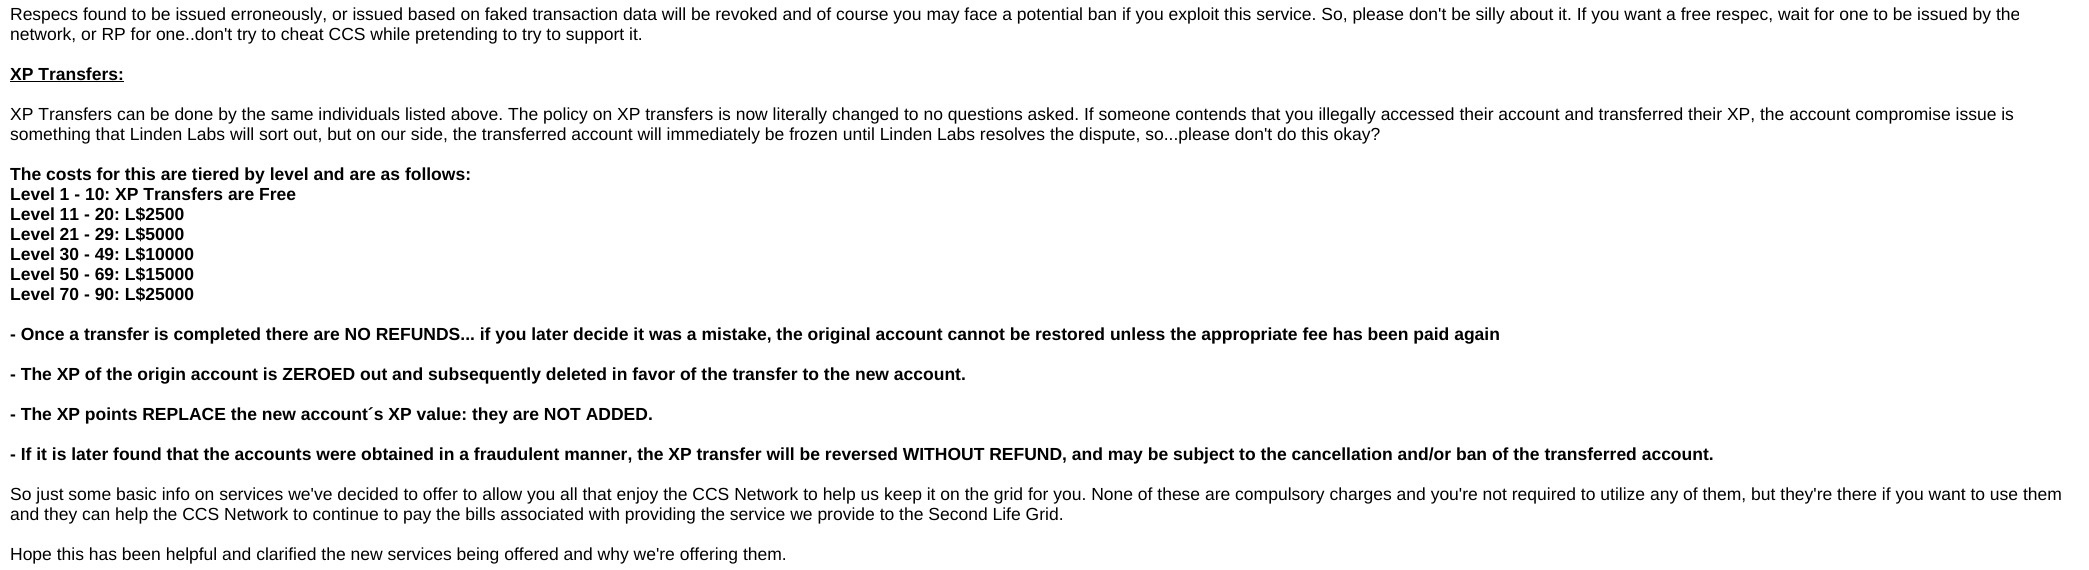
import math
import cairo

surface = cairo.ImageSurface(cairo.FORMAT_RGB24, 2089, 570)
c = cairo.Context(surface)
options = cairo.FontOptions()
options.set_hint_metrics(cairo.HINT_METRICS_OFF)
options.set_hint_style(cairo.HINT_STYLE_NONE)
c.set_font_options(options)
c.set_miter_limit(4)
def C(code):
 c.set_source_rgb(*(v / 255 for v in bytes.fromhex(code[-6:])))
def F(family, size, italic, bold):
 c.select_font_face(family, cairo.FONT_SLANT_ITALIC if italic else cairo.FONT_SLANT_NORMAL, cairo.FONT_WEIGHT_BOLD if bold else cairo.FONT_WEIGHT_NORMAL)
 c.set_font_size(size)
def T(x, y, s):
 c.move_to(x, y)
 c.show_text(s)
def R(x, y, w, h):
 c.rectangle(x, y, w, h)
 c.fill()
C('ffffff')
c.paint()
F('Liberation Sans',17.5,0,0)
C('000000')
T(10,20,'Respecs found to be issued erroneously, or issued based on faked transaction data will be revoked and of course you may face a potential ban if you exploit this service. So, please don\'t be silly about it. If you want a free respec, wait for one to be issued by the')
T(10,40,'network, or RP for one..don\'t try to cheat CCS while pretending to try to support it.')
F('Liberation Sans',17.5,0,1)
T(10,80,'XP Transfers:')
R(10,81,114,1)
F('Liberation Sans',17.5,0,0)
T(10,120,'XP Transfers can be done by the same individuals listed above. The policy on XP transfers is now literally changed to no questions asked. If someone contends that you illegally accessed their account and transferred their XP, the account compromise issue is')
T(10,140,'something that Linden Labs will sort out, but on our side, the transferred account will immediately be frozen until Linden Labs resolves the dispute, so...please don\'t do this okay?')
F('Liberation Sans',17.5,0,1)
T(10,180,'The costs for this are tiered by level and are as follows:')
T(10,200,'Level 1 - 10: XP Transfers are Free')
T(10,220,'Level 11 - 20: L$2500')
T(10,240,'Level 21 - 29: L$5000')
T(10,260,'Level 30 - 49: L$10000')
T(10,280,'Level 50 - 69: L$15000')
T(10,300,'Level 70 - 90: L$25000')
T(10,340,'- Once a transfer is completed there are NO REFUNDS... if you later decide it was a mistake, the original account cannot be restored unless the appropriate fee has been paid again')
T(10,380,'- The XP of the origin account is ZEROED out and subsequently deleted in favor of the transfer to the new account.')
T(10,420,'- The XP points REPLACE the new account´s XP value: they are NOT ADDED.')
T(10,460,'- If it is later found that the accounts were obtained in a fraudulent manner, the XP transfer will be reversed WITHOUT REFUND, and may be subject to the cancellation and/or ban of the transferred account.')
F('Liberation Sans',17.5,0,0)
T(10,500,'So just some basic info on services we\'ve decided to offer to allow you all that enjoy the CCS Network to help us keep it on the grid for you. None of these are compulsory charges and you\'re not required to utilize any of them, but they\'re there if you want to use them')
T(10,520,'and they can help the CCS Network to continue to pay the bills associated with providing the service we provide to the Second Life Grid.')
T(10,560,'Hope this has been helpful and clarified the new services being offered and why we\'re offering them.')
surface.write_to_png('o.png')
